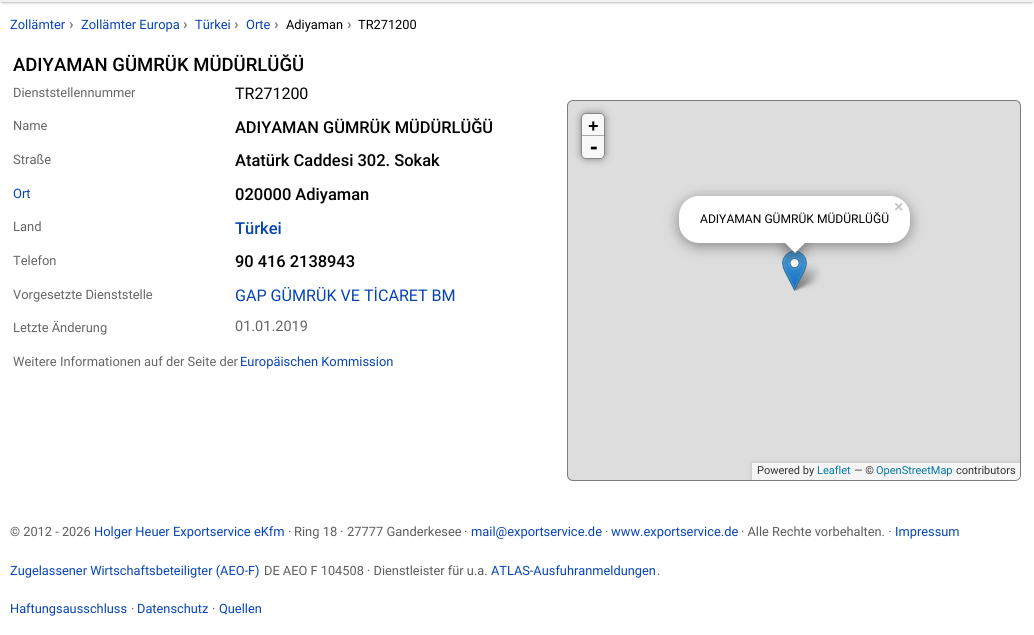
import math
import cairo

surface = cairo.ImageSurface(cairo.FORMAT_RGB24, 1034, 635)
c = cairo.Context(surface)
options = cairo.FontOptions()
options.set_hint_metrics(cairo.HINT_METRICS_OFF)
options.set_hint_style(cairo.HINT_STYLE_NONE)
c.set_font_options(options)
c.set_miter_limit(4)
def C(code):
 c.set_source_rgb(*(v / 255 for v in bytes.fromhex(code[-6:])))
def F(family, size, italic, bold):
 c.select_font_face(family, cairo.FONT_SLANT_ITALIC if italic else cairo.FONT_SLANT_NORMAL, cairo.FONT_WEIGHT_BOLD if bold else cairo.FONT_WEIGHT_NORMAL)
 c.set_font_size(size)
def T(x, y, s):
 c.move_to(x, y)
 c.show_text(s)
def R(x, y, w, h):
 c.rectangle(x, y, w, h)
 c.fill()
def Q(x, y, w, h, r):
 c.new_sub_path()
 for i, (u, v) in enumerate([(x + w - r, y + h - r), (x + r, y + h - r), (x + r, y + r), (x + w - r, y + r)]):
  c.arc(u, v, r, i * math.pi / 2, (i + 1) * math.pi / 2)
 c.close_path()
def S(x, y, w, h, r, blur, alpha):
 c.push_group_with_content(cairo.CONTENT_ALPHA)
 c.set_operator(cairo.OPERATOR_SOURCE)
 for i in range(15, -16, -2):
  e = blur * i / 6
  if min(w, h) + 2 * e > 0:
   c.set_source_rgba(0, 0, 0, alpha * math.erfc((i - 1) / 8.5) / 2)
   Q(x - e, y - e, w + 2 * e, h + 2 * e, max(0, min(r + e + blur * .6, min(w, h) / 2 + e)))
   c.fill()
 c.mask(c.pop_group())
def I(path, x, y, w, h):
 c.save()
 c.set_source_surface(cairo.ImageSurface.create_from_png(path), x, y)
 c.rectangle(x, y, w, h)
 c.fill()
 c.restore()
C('ffffff')
c.paint()
C('000000')
S(2,-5,1030,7,0,1.5,.5)
C('f1f1f1')
R(0,0,1034,2)
F('Roboto',12.9,0,0)
C('0644b4')
T(10,29,'Zollämter')
F('Roboto',15,0,1)
C('7c7c7c')
T(69,29,'›')
F('Roboto',12.9,0,0)
C('0644b4')
T(81,29,'Zollämter Europa')
F('Roboto',15,0,1)
C('7c7c7c')
T(183,29,'›')
F('Roboto',12.9,0,0)
C('0644b4')
T(195,29,'Türkei')
F('Roboto',15,0,1)
C('7c7c7c')
T(234,29,'›')
F('Roboto',12.9,0,0)
C('0644b4')
T(246,29,'Orte')
F('Roboto',15,0,1)
C('7c7c7c')
T(274,29,'›')
F('Roboto',12.8,0,0)
C('000000')
T(286,29,'Adiyaman')
F('Roboto',15,0,1)
C('7c7c7c')
T(347,29,'›')
F('Roboto',12.8,0,0)
C('000000')
T(358,29,'TR271200')
F('Roboto Medium',18.5,0,0)
T(13,71,'ADIYAMAN GÜMRÜK MÜDÜRLÜĞÜ')
F('Roboto',12.9,0,0)
C('666666')
T(13,97,'Dienststellennummer')
F('Roboto',16,0,0)
C('000000')
T(235,99,'TR271200')
F('Roboto',12.9,0,0)
C('666666')
T(13,130,'Name')
F('Roboto Medium',16.4,0,0)
C('000000')
T(235,133,'ADIYAMAN GÜMRÜK MÜDÜRLÜĞÜ')
F('Roboto',13,0,0)
C('666666')
T(13,164,'Straße')
F('Roboto Medium',16.5,0,0)
C('000000')
T(235,166,'Atatürk Caddesi 302. Sokak')
F('Roboto',13,0,0)
C('0644b4')
T(13,198,'Ort')
F('Roboto Medium',16.5,0,0)
C('000000')
T(235,200,'020000 Adiyaman')
F('Roboto',13,0,0)
C('666666')
T(13,231,'Land')
F('Roboto Medium',16.5,0,0)
C('0644b4')
T(235,234,'Türkei')
F('Roboto',12.9,0,0)
C('666666')
T(13,265,'Telefon')
F('Roboto Medium',16.4,0,0)
C('000000')
T(235,267,'90 416 2138943')
F('Roboto',12.9,0,0)
C('666666')
T(13,299,'Vorgesetzte Dienststelle')
F('Roboto',16.1,0,0)
C('0644b4')
T(235,301,'GAP GÜMRÜK VE TİCARET BM')
F('Roboto',12.9,0,0)
C('666666')
T(13,332,'Letzte Änderung')
F('Roboto',14.5,0,0)
T(235,331,'01.01.2019')
F('Roboto',12.9,0,0)
T(13,366,'Weitere Informationen auf der Seite der')
C('0644b4')
T(240,366,'Europäischen Kommission')
C('dddddd')
Q(567.5,100.5,453,380,5.5)
c.fill_preserve()
C('7c7c7c')
c.set_line_width(1)
c.stroke()
c.save()
c.set_fill_rule(cairo.FILL_RULE_EVEN_ODD)
c.new_path()
c.move_to(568,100)
c.line_to(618,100)
c.line_to(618,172)
c.line_to(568,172)
c.close_path()
c.move_to(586,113)
c.line_to(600,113)
c.curve_to(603,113,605,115,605,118)
c.line_to(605,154)
c.curve_to(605,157,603,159,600,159)
c.line_to(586,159)
c.curve_to(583,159,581,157,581,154)
c.line_to(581,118)
c.curve_to(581,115,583,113,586,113)
c.close_path()
c.clip()
C('000000')
S(581,113,24,46,5,4,.4)
c.restore()
Q(581.5,113.5,23,45,4.5)
C('888888')
c.stroke()
c.set_source_rgba(1,1,1,0.8)
c.new_path()
c.move_to(586,114)
c.line_to(600,114)
c.curve_to(602,114,604,116,604,118)
c.line_to(604,136)
c.line_to(582,136)
c.line_to(582,118)
c.curve_to(582,116,584,114,586,114)
c.close_path()
c.fill()
C('aaaaaa')
R(582,135,22,1)
F('Liberation Sans',18,0,1)
C('000000')
T(588,132,'+')
c.set_source_rgba(1,1,1,0.8)
c.new_path()
c.move_to(582,136)
c.line_to(604,136)
c.line_to(604,154)
c.curve_to(604,156,602,158,600,158)
c.line_to(586,158)
c.curve_to(584,158,582,156,582,154)
c.close_path()
c.fill()
F('Liberation Sans',23,0,1)
C('000000')
T(590,154,'-')
c.save()
Q(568,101,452,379,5)
c.clip()
c.set_fill_rule(cairo.FILL_RULE_EVEN_ODD)
c.new_path()
c.move_to(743,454)
c.line_to(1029,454)
c.line_to(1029,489)
c.line_to(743,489)
c.close_path()
c.move_to(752,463)
c.line_to(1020,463)
c.line_to(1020,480)
c.line_to(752,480)
c.close_path()
c.clip()
C('bbbbbb')
S(752,463,268,17,0,2.5,1)
c.restore()
c.set_source_rgba(1,1,1,0.7)
c.new_path()
c.move_to(752,463)
c.line_to(1020,463)
c.line_to(1020,475)
c.curve_to(1020,478,1018,480,1015,480)
c.line_to(752,480)
c.close_path()
c.fill()
F('Roboto',11,0,0)
C('333333')
T(757,474,'Powered by')
C('0078a8')
T(817,474,'Leaflet')
C('333333')
T(854,474,'— ©')
C('0078a8')
T(876,474,'OpenStreetMap')
C('333333')
T(956,474,'contributors')
I('2.png',792,263,29,28)
I('1.png',782,250,25,41)
C('000000')
S(679,199,231,47,20,7,.4)
C('ffffff')
Q(679,196,231,47,20)
c.fill()
F('Liberation Sans',16,0,1)
C('c3c3c3')
T(894,212,'×')
F('Roboto',12.1,0,0)
C('000000')
T(700,223,'ADIYAMAN GÜMRÜK MÜDÜRLÜĞÜ')
c.save()
c.rectangle(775,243,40,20)
c.clip()
C('000000')
S(787,238,15,15,0,7,.4)
c.restore()
c.save()
c.rectangle(775,243,40,20)
c.clip()
C('ffffff')
c.new_path()
c.move_to(795,232)
c.line_to(805.5,242.5)
c.line_to(795,253)
c.line_to(784.5,242.5)
c.close_path()
c.fill()
c.restore()
F('Roboto',12.8,0,0)
C('5d5d5d')
T(10,536,'© 2012 - 2026')
F('Roboto',12.9,0,0)
C('0644b4')
T(94,536,'Holger Heuer Exportservice eKfm')
F('Roboto',12.8,0,0)
C('5d5d5d')
T(288,536,'·')
F('Roboto',12.9,0,0)
T(294,536,'Ring 18')
T(340,536,'·')
T(347,536,'27777 Ganderkesee')
F('Roboto',12.8,0,0)
T(464,536,'·')
F('Roboto',12.9,0,0)
C('0644b4')
T(471,536,'mail@exportservice.de')
F('Roboto',12.8,0,0)
C('5d5d5d')
T(605,536,'·')
F('Roboto',12.9,0,0)
C('0644b4')
T(611,536,'www.exportservice.de')
F('Roboto',12.8,0,0)
C('5d5d5d')
T(741,536,'· Alle Rechte vorbehalten. ·')
C('0644b4')
T(895,536,'Impressum')
T(10,575,'Zugelassener Wirtschaftsbeteiligter (AEO-F)')
C('5d5d5d')
T(264,575,'DE AEO F 104508 · Dienstleister für u.a.')
C('0644b4')
T(491,575,'ATLAS-Ausfuhranmeldungen')
C('5d5d5d')
T(657,575,'.')
C('0644b4')
T(10,613,'Haftungsausschluss')
C('5d5d5d')
T(131,613,'·')
C('0644b4')
T(137,613,'Datenschutz')
C('5d5d5d')
T(212,613,'·')
C('0644b4')
T(219,613,'Quellen')
surface.write_to_png('o.png')
